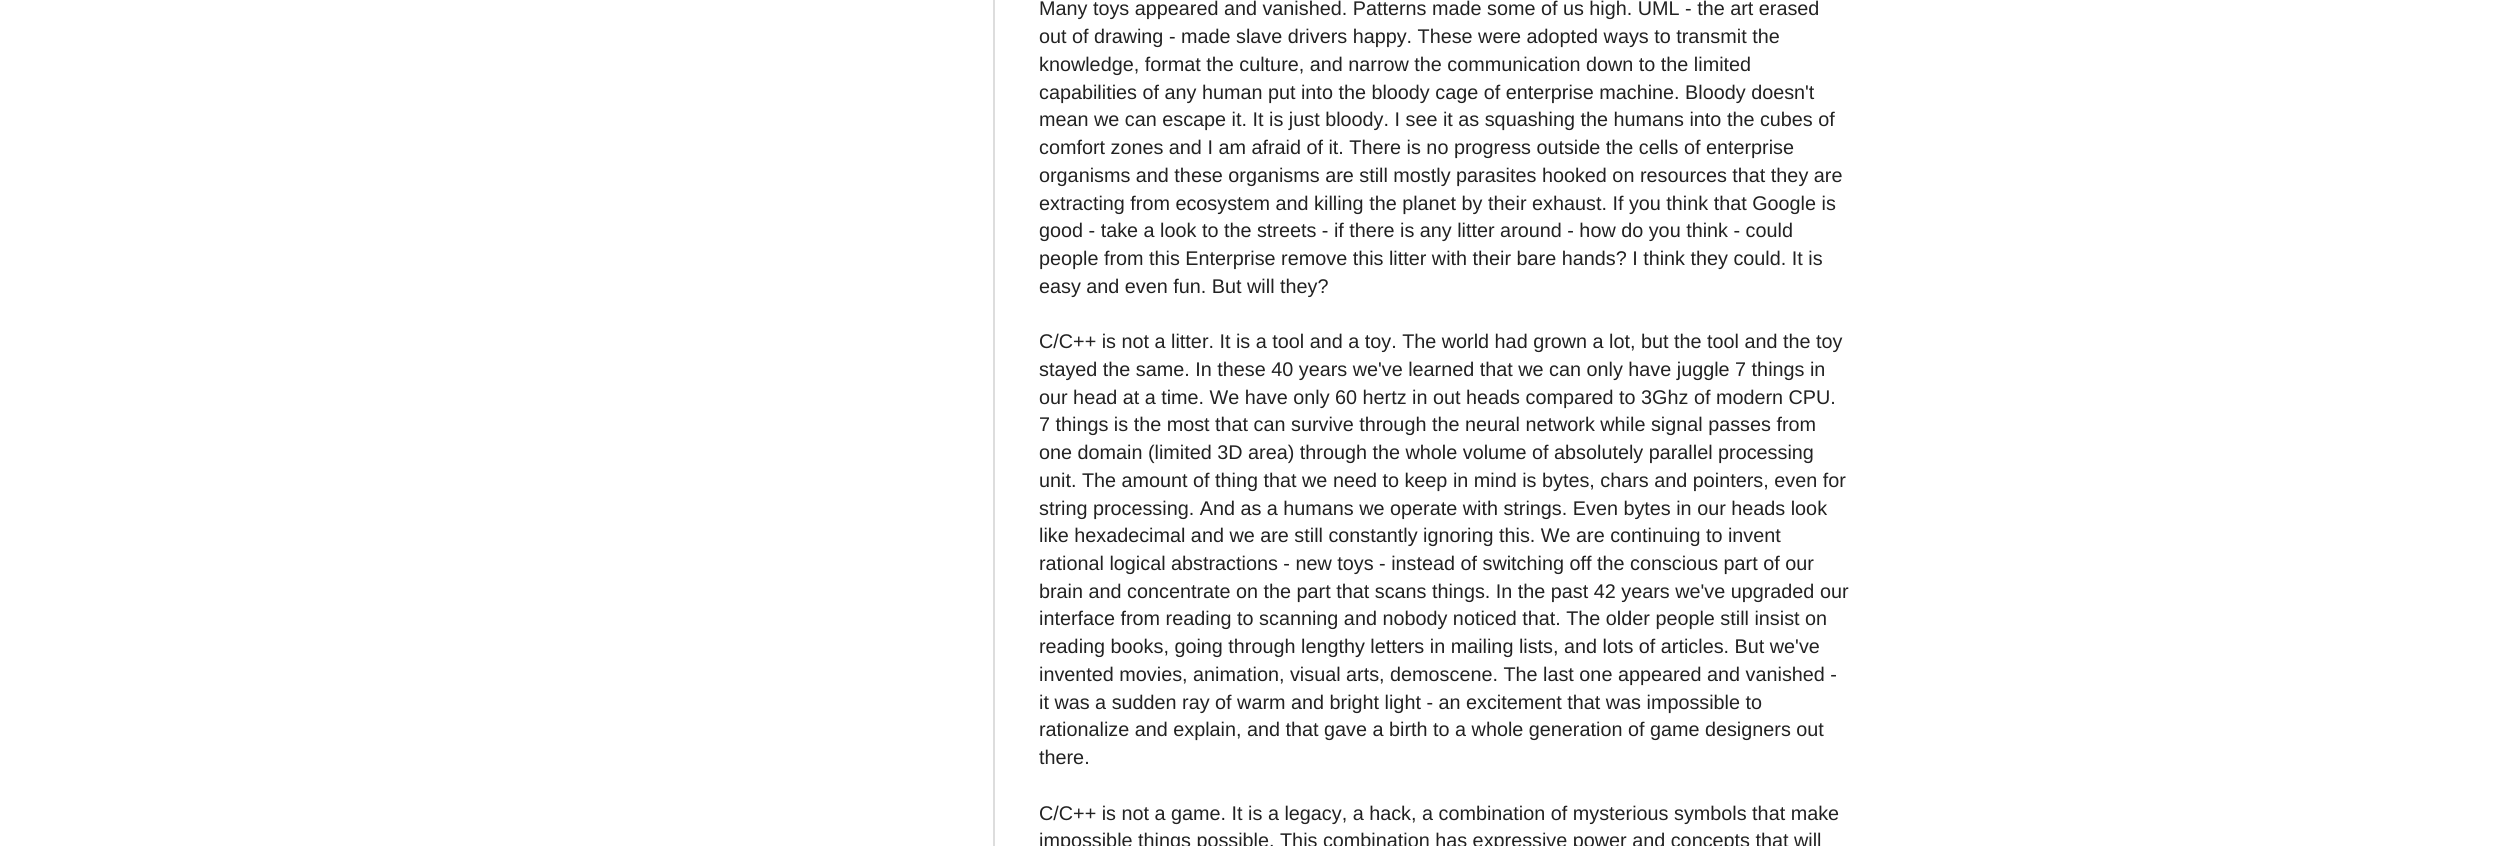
import math
import cairo

surface = cairo.ImageSurface(cairo.FORMAT_RGB24, 2497, 846)
c = cairo.Context(surface)
options = cairo.FontOptions()
options.set_hint_metrics(cairo.HINT_METRICS_OFF)
options.set_hint_style(cairo.HINT_STYLE_NONE)
c.set_font_options(options)
c.set_miter_limit(4)
def C(code):
 c.set_source_rgb(*(v / 255 for v in bytes.fromhex(code[-6:])))
def F(family, size, italic, bold):
 c.select_font_face(family, cairo.FONT_SLANT_ITALIC if italic else cairo.FONT_SLANT_NORMAL, cairo.FONT_WEIGHT_BOLD if bold else cairo.FONT_WEIGHT_NORMAL)
 c.set_font_size(size)
def T(x, y, s):
 c.move_to(x, y)
 c.show_text(s)
def R(x, y, w, h):
 c.rectangle(x, y, w, h)
 c.fill()
C('ffffff')
c.paint()
C('dddddd')
R(993,0,2,846)
F('Liberation Sans',19.8,0,0)
C('222222')
T(1039,15,'Many toys appeared and vanished. Patterns made some of us high. UML - the art erased')
T(1039,43,'out of drawing - made slave drivers happy. These were adopted ways to transmit the')
T(1039,71,'knowledge, format the culture, and narrow the communication down to the limited')
T(1039,99,'capabilities of any human put into the bloody cage of enterprise machine. Bloody doesn\'t')
T(1039,126,'mean we can escape it. It is just bloody. I see it as squashing the humans into the cubes of')
T(1039,154,'comfort zones and I am afraid of it. There is no progress outside the cells of enterprise')
T(1039,182,'organisms and these organisms are still mostly parasites hooked on resources that they are')
T(1039,210,'extracting from ecosystem and killing the planet by their exhaust. If you think that Google is')
T(1039,237,'good - take a look to the streets - if there is any litter around - how do you think - could')
T(1039,265,'people from this Enterprise remove this litter with their bare hands? I think they could. It is')
T(1039,293,'easy and even fun. But will they?')
T(1039,348,'C/C++ is not a litter. It is a tool and a toy. The world had grown a lot, but the tool and the toy')
T(1039,376,'stayed the same. In these 40 years we\'ve learned that we can only have juggle 7 things in')
T(1039,404,'our head at a time. We have only 60 hertz in out heads compared to 3Ghz of modern CPU.')
T(1039,431,'7 things is the most that can survive through the neural network while signal passes from')
T(1039,459,'one domain (limited 3D area) through the whole volume of absolutely parallel processing')
T(1039,487,'unit. The amount of thing that we need to keep in mind is bytes, chars and pointers, even for')
T(1039,515,'string processing. And as a humans we operate with strings. Even bytes in our heads look')
T(1039,542,'like hexadecimal and we are still constantly ignoring this. We are continuing to invent')
T(1039,570,'rational logical abstractions - new toys - instead of switching off the conscious part of our')
T(1039,598,'brain and concentrate on the part that scans things. In the past 42 years we\'ve upgraded our')
T(1039,625,'interface from reading to scanning and nobody noticed that. The older people still insist on')
T(1039,653,'reading books, going through lengthy letters in mailing lists, and lots of articles. But we\'ve')
T(1039,681,'invented movies, animation, visual arts, demoscene. The last one appeared and vanished -')
T(1039,709,'it was a sudden ray of warm and bright light - an excitement that was impossible to')
T(1039,736,'rationalize and explain, and that gave a birth to a whole generation of game designers out')
T(1039,764,'there.')
T(1039,820,'C/C++ is not a game. It is a legacy, a hack, a combination of mysterious symbols that make')
T(1039,847,'impossible things possible. This combination has expressive power and concepts that will')
surface.write_to_png('o.png')
